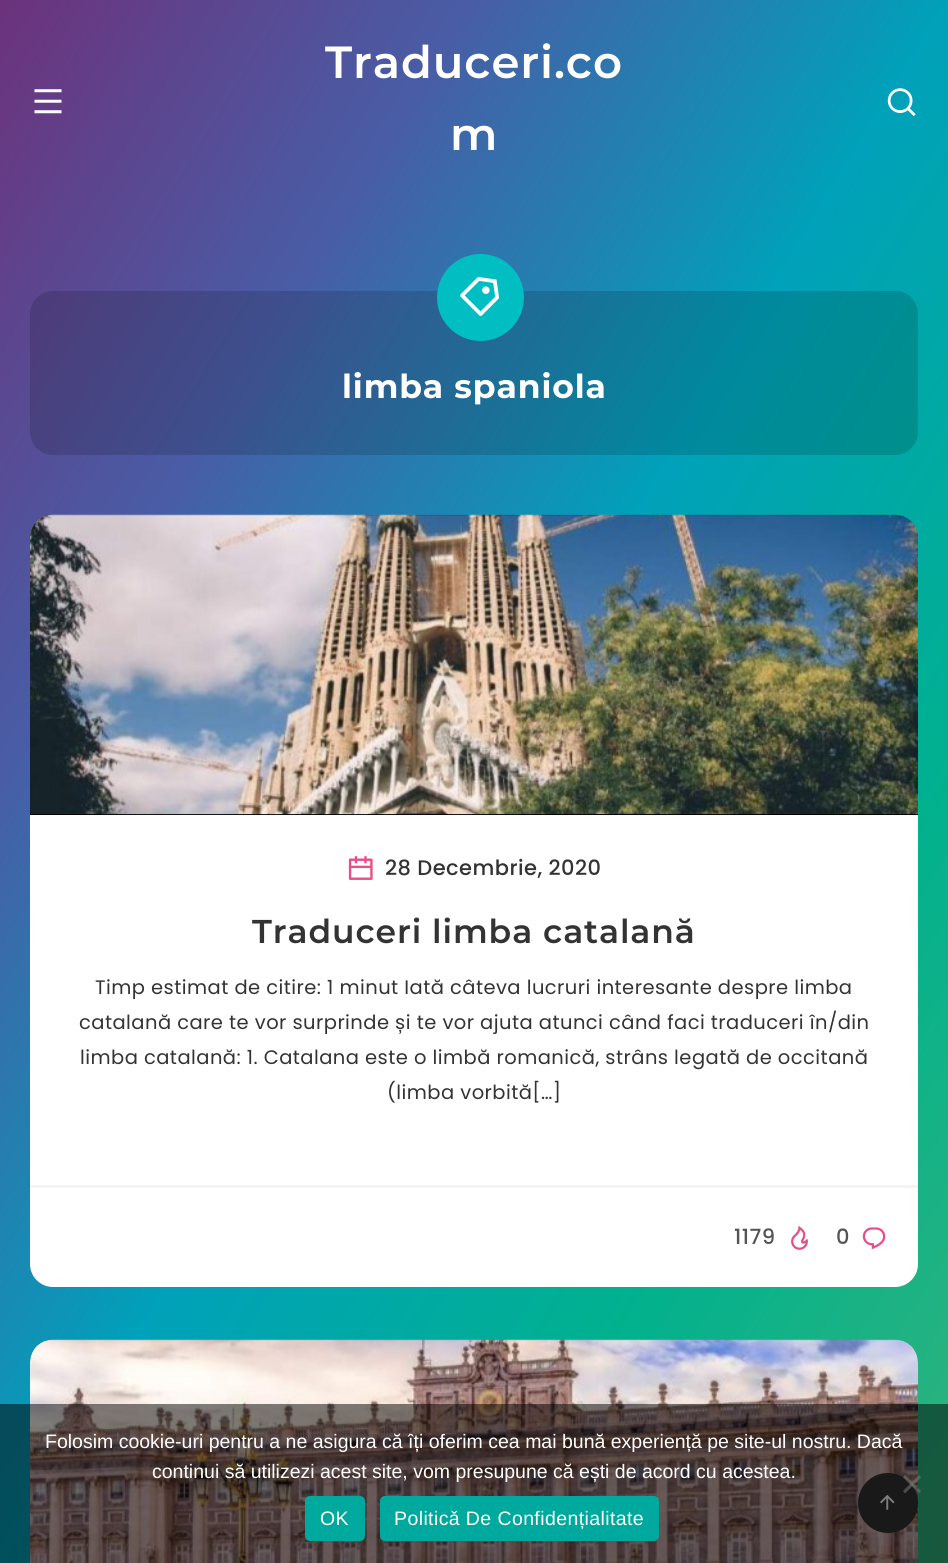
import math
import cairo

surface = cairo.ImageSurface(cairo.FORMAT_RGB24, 948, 1563)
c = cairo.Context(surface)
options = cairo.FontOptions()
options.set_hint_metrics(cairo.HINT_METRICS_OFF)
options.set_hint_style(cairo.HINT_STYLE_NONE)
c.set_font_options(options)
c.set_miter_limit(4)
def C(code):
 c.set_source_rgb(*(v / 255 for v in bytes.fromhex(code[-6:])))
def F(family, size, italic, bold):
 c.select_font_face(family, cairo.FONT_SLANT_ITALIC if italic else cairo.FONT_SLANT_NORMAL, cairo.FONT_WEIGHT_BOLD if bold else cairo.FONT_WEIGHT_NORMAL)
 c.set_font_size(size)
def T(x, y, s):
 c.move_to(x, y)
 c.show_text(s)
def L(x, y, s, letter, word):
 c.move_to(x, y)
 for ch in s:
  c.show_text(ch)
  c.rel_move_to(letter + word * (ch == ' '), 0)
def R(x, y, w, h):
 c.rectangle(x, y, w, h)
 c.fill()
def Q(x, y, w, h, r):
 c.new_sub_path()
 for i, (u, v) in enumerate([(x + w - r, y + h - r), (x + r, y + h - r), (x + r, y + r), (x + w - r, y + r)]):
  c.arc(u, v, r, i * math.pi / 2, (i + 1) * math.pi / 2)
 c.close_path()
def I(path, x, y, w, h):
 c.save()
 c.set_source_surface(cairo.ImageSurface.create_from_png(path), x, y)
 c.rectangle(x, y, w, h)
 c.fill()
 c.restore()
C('ffffff')
c.paint()
gradient = cairo.LinearGradient(-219,361,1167,1202)
gradient.add_color_stop_rgba(0,0.427,0.196,0.486,1)
gradient.add_color_stop_rgba(.25,0.282,0.365,0.651,1)
gradient.add_color_stop_rgba(.5,0,0.631,0.729,1)
gradient.add_color_stop_rgba(.75,0.004,0.694,0.557,1)
gradient.add_color_stop_rgba(1,0.196,0.702,0.482,1)
c.set_source(gradient)
R(0,0,948,1563)
I('1.png',34,89,28,25)
F('Montserrat SemiBold',45,0,0)
C('ffffff')
L(325,78,'Traduceri.co',.9,0)
L(450,150,'m',.9,0)
I('2.png',887,88,29,29)
c.set_source_rgba(0,0,0,0.15)
Q(30,291,888,164,23)
c.fill()
C('00bec1')
c.arc(480.5,297.5,40.5,0,2 * math.pi)
c.fill_preserve()
c.set_line_width(6)
c.stroke()
I('3.png',460,277,40,39)
F('Montserrat',33,0,1)
C('ffffff')
L(342,398,'limba spaniola',.9,0)
Q(30,515,888,772,23)
c.fill()
C('000000')
c.new_path()
c.move_to(53,515)
c.line_to(895,515)
c.curve_to(907.5,515,918,525.5,918,538)
c.line_to(918,815)
c.line_to(30,815)
c.line_to(30,538)
c.curve_to(30,525.5,40.5,515,53,515)
c.close_path()
c.fill()
I('4.png',30,514,888,301)
I('5.png',348,856,25,24)
F('Poppins Medium',21,0,0)
C('333333')
L(385,875,'28 Decembrie, 2020',.45,0)
F('Montserrat SemiBold',33,0,0)
L(252,943,'Traduceri limba catalană',.9,0)
F('Poppins',19.5,0,0)
L(95,994,'Timp estimat de citire: 1 minut Iată câteva lucruri interesante despre limba',.45,0)
L(79,1029,'catalană care te vor surprinde și te vor ajuta atunci când faci traduceri în/din',.45,0)
L(80,1064,'limba catalană: 1. Catalana este o limbă romanică, strâns legată de occitană',.45,0)
L(387,1099,'(limba vorbită[…]',.45,0)
C('f4f4f4')
R(30,1185,888,3)
F('Poppins Medium',21,0,0)
C('555555')
L(734,1244,'1179',.45,0)
I('6.png',791,1225,17,25)
L(836,1244,'0',.45,0)
I('7.png',862,1227,24,23)
I('8.png',30,1339,888,224)
C('333333')
c.arc(888,1503,30,0,2 * math.pi)
c.fill()
I('9.png',880,1494,15,16)
c.set_source_rgba(0,0,0,0.5)
R(0,1404,948,159)
F('Liberation Sans',19.5,0,0)
C('ffffff')
T(45,1448,'Folosim cookie-uri pentru a ne asigura că îți oferim cea mai bună experiență pe site-ul nostru. Dacă')
T(152,1478,'continui să utilizezi acest site, vom presupune că ești de acord cu acestea.')
c.set_source_rgba(0.502,0.502,0.502,0.5)
c.new_path()
c.move_to(919,1475)
c.line_to(921,1477.5)
c.line_to(905,1493.5)
c.line_to(903,1491)
c.close_path()
c.fill()
c.new_path()
c.move_to(903,1477.5)
c.line_to(905,1475)
c.line_to(921,1491)
c.line_to(919,1493.5)
c.close_path()
c.fill()
C('00a99d')
Q(305,1496,60,45,5)
c.fill()
C('ffffff')
L(320,1525,'OK',.4,0)
C('00a99d')
Q(380,1496,279,45,5)
c.fill()
C('ffffff')
L(394,1525,'Politicǎ De Confidențialitate',.4,0)
surface.write_to_png('o.png')
